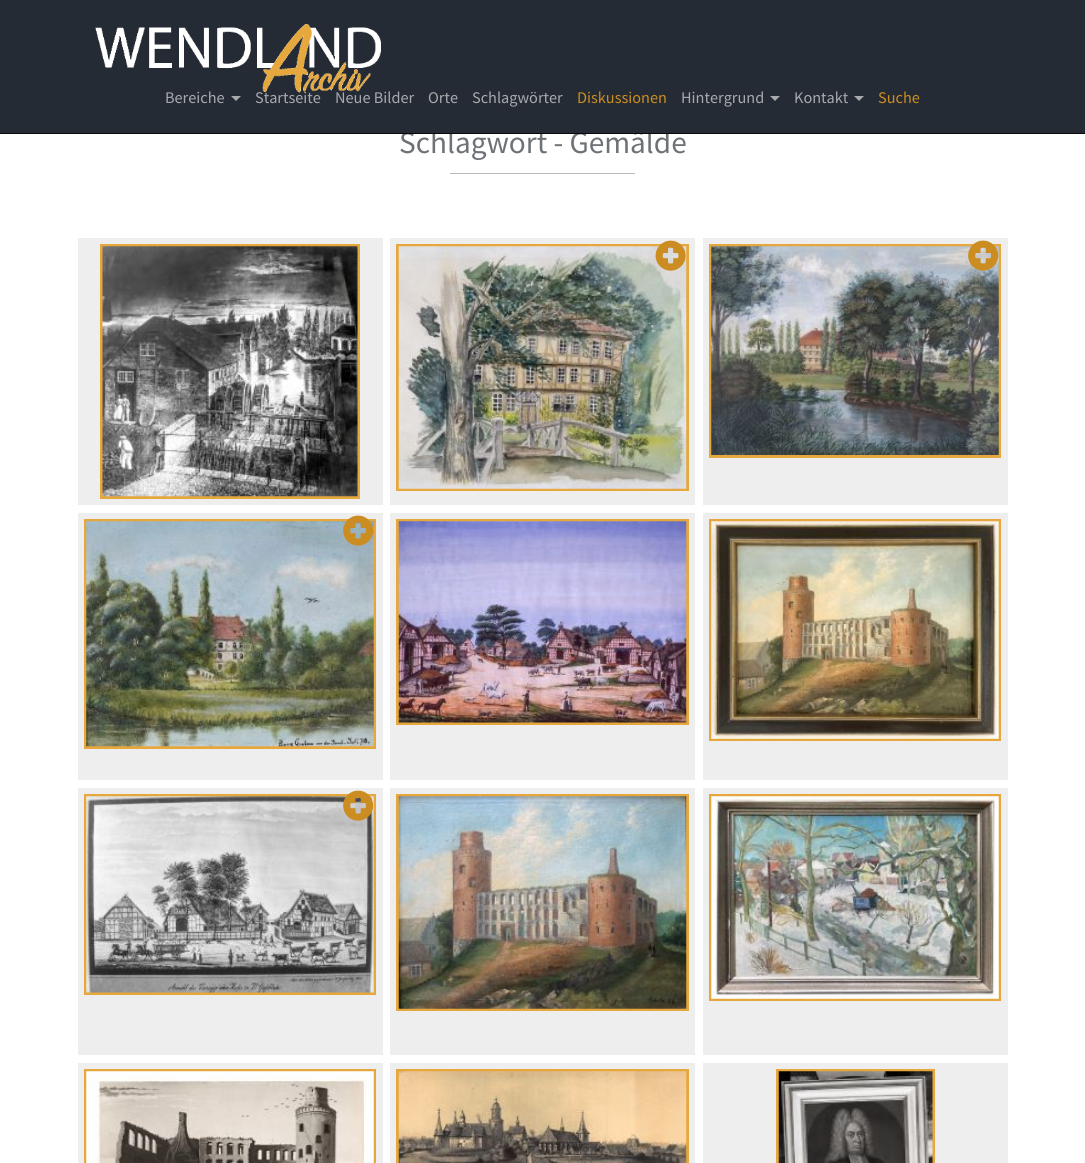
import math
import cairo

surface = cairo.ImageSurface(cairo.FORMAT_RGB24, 1085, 1163)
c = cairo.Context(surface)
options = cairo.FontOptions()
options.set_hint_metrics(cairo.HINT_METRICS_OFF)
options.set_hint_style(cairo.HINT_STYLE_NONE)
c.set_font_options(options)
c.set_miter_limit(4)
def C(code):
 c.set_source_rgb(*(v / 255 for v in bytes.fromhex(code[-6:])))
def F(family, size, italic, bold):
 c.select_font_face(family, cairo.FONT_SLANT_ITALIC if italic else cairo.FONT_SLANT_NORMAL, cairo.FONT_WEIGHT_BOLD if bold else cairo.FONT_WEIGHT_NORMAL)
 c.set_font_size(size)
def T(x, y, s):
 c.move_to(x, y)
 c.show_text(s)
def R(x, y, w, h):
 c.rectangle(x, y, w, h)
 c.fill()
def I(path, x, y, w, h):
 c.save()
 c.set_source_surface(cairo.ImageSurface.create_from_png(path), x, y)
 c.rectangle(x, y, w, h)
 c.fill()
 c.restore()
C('ffffff')
c.paint()
F('Source Sans Pro',31.25,0,0)
C('6e7277')
T(399,153,'Schlagwort - Gemälde')
C('252b34')
R(0,0,1085,133)
C('080808')
R(0,133,1085,1)
I('1.png',95,24,286,69)
F('Source Sans Pro',16.25,0,0)
C('a8aaae')
T(165,103,'Bereiche')
c.new_path()
c.move_to(231,96)
c.line_to(241,96)
c.line_to(236,101)
c.close_path()
c.fill()
T(255,103,'Startseite')
T(335,103,'Neue Bilder')
T(428,103,'Orte')
T(472,103,'Schlagwörter')
C('cb8d21')
T(577,103,'Diskussionen')
C('a8aaae')
T(681,103,'Hintergrund')
c.new_path()
c.move_to(770,96)
c.line_to(780,96)
c.line_to(775,101)
c.close_path()
c.fill()
T(794,103,'Kontakt')
c.new_path()
c.move_to(854,96)
c.line_to(864,96)
c.line_to(859,101)
c.close_path()
c.fill()
C('cb8d21')
T(878,103,'Suche')
C('b8babe')
R(450,173,185,1)
C('eeeeee')
R(78,238,305,267)
c.rectangle(101.5,245.5,257,252)
C('e6a83c')
c.set_line_width(3)
c.stroke()
I('2.png',102,246,256,251)
C('eeeeee')
R(390,238,305,267)
c.rectangle(397.5,245.5,290,244)
C('e6a83c')
c.stroke()
I('4.png',398,246,289,243)
I('3.png',655,240,31,31)
C('eeeeee')
R(703,238,305,267)
c.rectangle(710.5,245.5,289,211)
C('e6a83c')
c.stroke()
I('6.png',711,246,288,209)
I('5.png',968,240,31,31)
C('eeeeee')
R(78,513,305,267)
c.rectangle(85.5,520.5,289,227)
C('e6a83c')
c.stroke()
I('8.png',86,521,288,226)
I('7.png',343,515,31,31)
C('eeeeee')
R(390,513,305,267)
c.rectangle(397.5,520.5,290,203)
C('e6a83c')
c.stroke()
I('9.png',398,521,289,202)
C('eeeeee')
R(703,513,305,267)
c.rectangle(710.5,520.5,289,219)
C('e6a83c')
c.stroke()
I('10.png',711,521,288,218)
C('eeeeee')
R(78,788,305,267)
c.rectangle(85.5,795.5,289,198)
C('e6a83c')
c.stroke()
I('12.png',86,796,288,197)
I('11.png',343,790,31,31)
C('eeeeee')
R(390,788,305,267)
c.rectangle(397.5,795.5,290,214)
C('e6a83c')
c.stroke()
I('13.png',398,796,289,213)
C('eeeeee')
R(703,788,305,267)
c.rectangle(710.5,795.5,289,204)
C('e6a83c')
c.stroke()
I('14.png',711,796,288,203)
C('eeeeee')
R(78,1063,305,100)
c.rectangle(85.5,1070.5,289,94)
C('e6a83c')
c.stroke()
I('15.png',86,1071,288,92)
C('eeeeee')
R(390,1063,305,100)
c.rectangle(397.5,1070.5,290,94)
C('e6a83c')
c.stroke()
I('16.png',398,1071,289,92)
C('eeeeee')
R(703,1063,305,100)
c.rectangle(777.5,1070.5,156,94)
C('e6a83c')
c.stroke()
I('17.png',778,1071,155,92)
surface.write_to_png('o.png')
